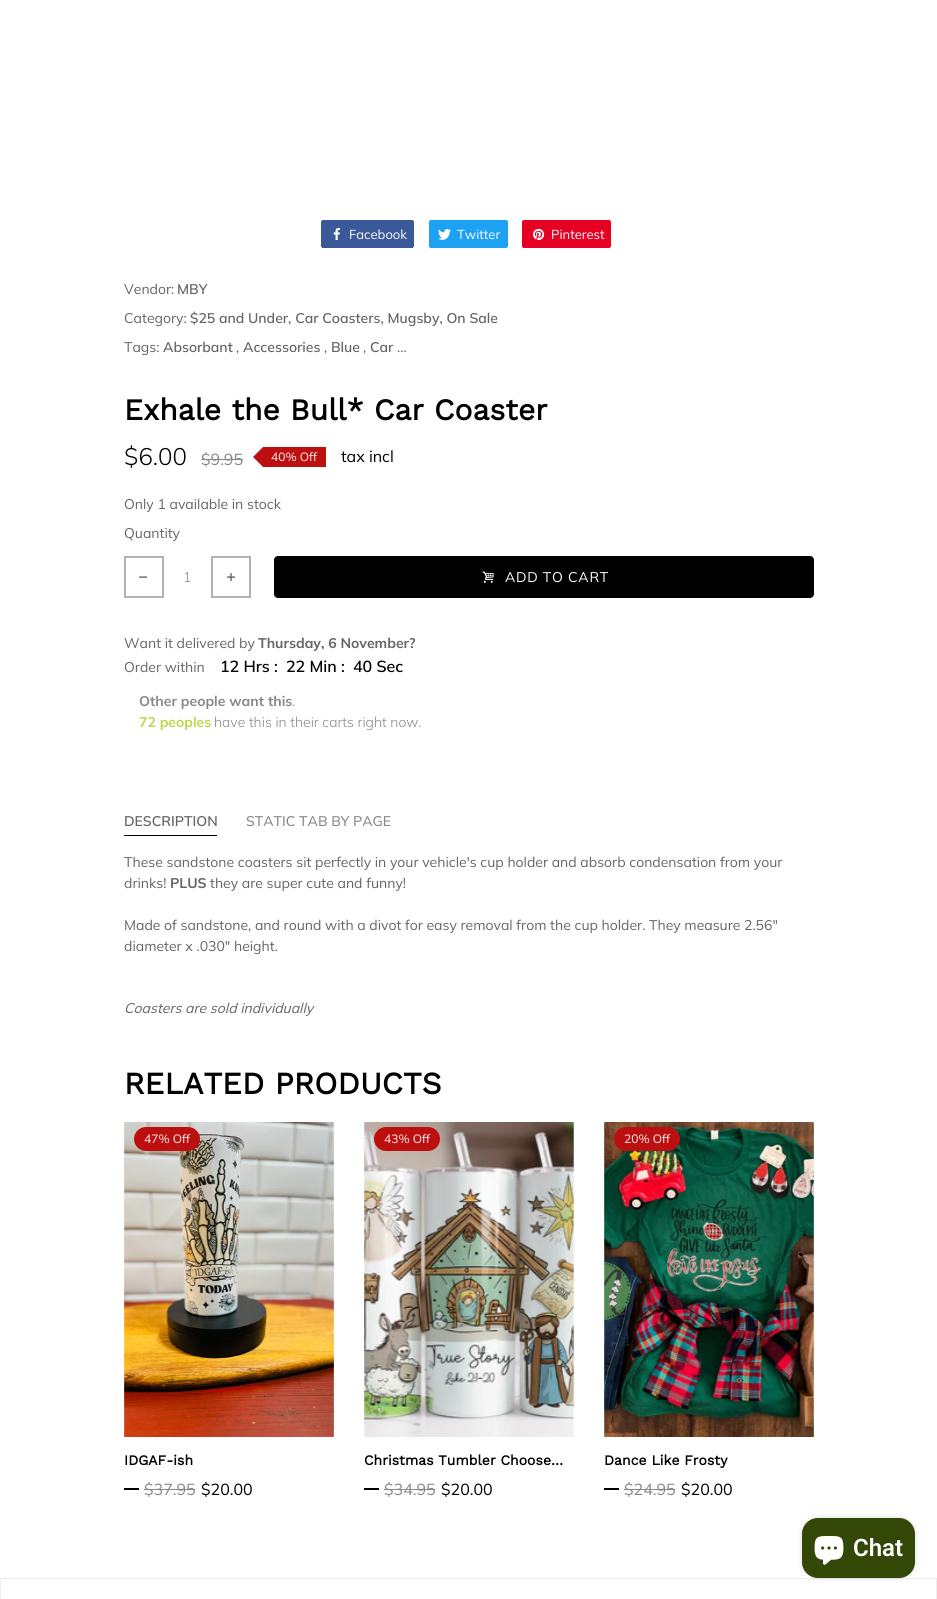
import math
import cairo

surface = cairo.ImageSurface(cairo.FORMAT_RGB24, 937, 1599)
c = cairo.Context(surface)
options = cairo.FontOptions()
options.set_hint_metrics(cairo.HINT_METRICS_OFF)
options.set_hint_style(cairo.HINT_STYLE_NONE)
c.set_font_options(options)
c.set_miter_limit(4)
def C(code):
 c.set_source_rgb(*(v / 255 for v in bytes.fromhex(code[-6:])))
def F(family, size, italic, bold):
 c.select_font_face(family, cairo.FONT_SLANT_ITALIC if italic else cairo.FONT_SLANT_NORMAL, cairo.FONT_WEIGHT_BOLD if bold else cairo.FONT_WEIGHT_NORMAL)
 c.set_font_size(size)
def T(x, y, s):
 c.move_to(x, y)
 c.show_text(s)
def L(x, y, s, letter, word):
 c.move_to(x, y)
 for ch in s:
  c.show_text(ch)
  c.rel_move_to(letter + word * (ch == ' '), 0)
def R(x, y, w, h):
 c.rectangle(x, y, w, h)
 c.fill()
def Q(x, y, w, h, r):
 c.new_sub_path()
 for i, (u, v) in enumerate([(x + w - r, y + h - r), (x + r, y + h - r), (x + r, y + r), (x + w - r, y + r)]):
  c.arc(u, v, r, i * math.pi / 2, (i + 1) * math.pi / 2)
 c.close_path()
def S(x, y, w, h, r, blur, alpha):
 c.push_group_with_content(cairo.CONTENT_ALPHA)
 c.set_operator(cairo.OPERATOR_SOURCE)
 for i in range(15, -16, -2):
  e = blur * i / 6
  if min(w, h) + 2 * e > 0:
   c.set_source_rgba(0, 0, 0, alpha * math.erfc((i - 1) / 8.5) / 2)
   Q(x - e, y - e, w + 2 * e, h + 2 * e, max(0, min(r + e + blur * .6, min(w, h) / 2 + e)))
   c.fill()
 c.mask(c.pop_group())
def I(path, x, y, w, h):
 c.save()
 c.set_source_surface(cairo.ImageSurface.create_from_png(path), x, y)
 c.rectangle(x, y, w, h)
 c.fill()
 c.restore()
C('ffffff')
c.paint()
C('3b5998')
Q(321,220,93,28,2)
c.fill()
I('1.png',333,227,7,13)
F('Muli',13,0,0)
C('ffffff')
T(349,239,'Facebook')
C('1da1f2')
Q(429,220,79,28,2)
c.fill()
I('2.png',438,229,13,11)
C('ffffff')
T(457,239,'Twitter')
C('e60023')
Q(522,220,89,28,2)
c.fill()
I('3.png',533,228,12,12)
C('ffffff')
T(551,239,'Pinterest')
F('Muli',14,0,0)
C('646565')
T(124,294,'Vendor:')
F('Muli SemiBold',14,0,0)
T(177,294,'MBY')
F('Muli',14,0,0)
T(124,323,'Category:')
F('Muli SemiBold',14,0,0)
T(190,323,'$25 and Under, Car Coasters, Mugsby, On Sale')
F('Muli',14,0,0)
T(124,352,'Tags:')
F('Muli SemiBold',14,0,0)
T(163,352,'Absorbant')
F('Muli',14,0,0)
T(236,352,',')
F('Muli SemiBold',14,0,0)
T(243,352,'Accessories')
F('Muli',14,0,0)
T(324,352,',')
F('Muli SemiBold',14,0,0)
T(331,352,'Blue')
F('Muli',14,0,0)
T(363,352,',')
F('Muli SemiBold',14,0,0)
T(370,352,'Car')
F('Muli',14,0,0)
T(397,352,'...')
F('Work Sans',30,0,1)
C('000000')
T(124,420,'Exhale the Bull* Car Coaster')
F('Muli Light',24,0,0)
T(124,465,'$6.00')
F('Muli',16,0,0)
C('888888')
T(201,465,'$9.95')
R(201,459,42,1)
C('bd0f0f')
R(263,447,63,20)
c.new_path()
c.move_to(263,447)
c.line_to(263,467)
c.line_to(253,457)
c.close_path()
c.fill()
F('Muli',12,0,0)
C('faf4f4')
T(271,461,'40% Off')
F('Muli',16,0,0)
C('000000')
T(341,462,'tax incl')
F('Muli',14,0,0)
C('646565')
T(124,509,'Only 1 available in stock')
T(124,538,'Quantity')
c.rectangle(125,557,38,40)
C('b3b3b3')
c.stroke()
I('4.png',139,576,9,2)
F('Muli Light',14,0,0)
C('888888')
T(183,582,'1')
c.rectangle(212,557,38,40)
C('b3b3b3')
c.stroke()
I('5.png',227,573,9,9)
C('000000')
Q(274,556,540,42,4)
c.fill()
I('6.png',482,571,12,12)
F('Muli',14,0,0)
C('ffffff')
L(505,582,'ADD TO CART',.75,0)
C('646565')
T(124,648,'Want it delivered by')
F('Muli',14,0,1)
T(258,648,'Thursday, 6 November?')
F('Muli',14,0,0)
T(124,672,'Order within')
F('Muli SemiBold',16,0,0)
C('000000')
T(220,672,'12 Hrs')
T(274,672,':')
T(286,672,'22 Min')
T(341,672,':')
T(353,672,'40 Sec')
F('Muli',14,0,1)
C('888888')
T(139,706,'Other people want this')
F('Muli Light',14,0,0)
T(292,706,'.')
F('Muli',14,0,1)
C('c2d44e')
T(139,727,'72 peoples')
F('Muli Light',14,0,0)
C('888888')
T(214,727,'have this in their carts right now.')
C('000000')
R(124,835,93,1)
F('Muli SemiBold',14,0,0)
C('646565')
T(124,826,'DESCRIPTION')
F('Muli Medium',14,0,0)
C('888888')
T(246,826,'STATIC TAB BY PAGE')
F('Muli',14,0,0)
C('646565')
T(124,867,'These sandstone coasters sit perfectly in your vehicle\'s cup holder and absorb condensation from your')
T(124,888,'drinks!')
F('Muli',14,0,1)
T(170,888,'PLUS')
F('Muli',14,0,0)
T(210,888,'they are super cute and funny!')
T(124,930,'Made of sandstone, and round with a divot for easy removal from the cup holder. They measure 2.56"')
T(124,951,'diameter x .030" height.')
F('Muli',14,1,0)
T(124,1013,'Coasters are sold individually')
F('Work Sans',31,0,1)
C('000000')
T(124,1094,'RELATED PRODUCTS')
I('7.png',124,1122,210,315)
C('bd0f0f')
Q(134,1127,66,24,12)
c.fill()
F('Muli',12,0,0)
C('faf4f4')
T(144,1143,'47% Off')
F('Work Sans',14,0,1)
C('000000')
T(124,1465,'IDGAF-ish')
R(124,1488,15,2)
F('Muli',16,0,0)
C('888888')
T(144,1495,'$37.95')
R(144,1489,51,1)
C('000000')
T(201,1495,'$20.00')
I('8.png',364,1122,210,315)
C('bd0f0f')
Q(374,1127,66,24,12)
c.fill()
F('Muli',12,0,0)
C('faf4f4')
T(384,1143,'43% Off')
F('Work Sans',14,0,1)
C('000000')
T(364,1465,'Christmas Tumbler Choose…')
R(364,1488,15,2)
F('Muli',16,0,0)
C('888888')
T(384,1495,'$34.95')
R(384,1489,51,1)
C('000000')
T(441,1495,'$20.00')
I('9.png',604,1122,210,315)
C('bd0f0f')
Q(614,1127,66,24,12)
c.fill()
F('Muli',12,0,0)
C('faf4f4')
T(624,1143,'20% Off')
F('Work Sans',14,0,1)
C('000000')
T(604,1465,'Dance Like Frosty')
R(604,1488,15,2)
F('Muli',16,0,0)
C('888888')
T(624,1495,'$24.95')
R(624,1489,51,1)
C('000000')
T(681,1495,'$20.00')
c.rectangle(.5,1578.5,936,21)
C('eeeeee')
c.set_line_width(1)
c.stroke()
C('000000')
S(802,1518,113,60,16,2.5,.15)
C('334807')
Q(802,1518,113,60,16)
c.fill()
I('10.png',814,1536,30,29)
F('Roboto SemiBold',24,0,0)
C('ffffff')
T(853,1556,'Chat')
surface.write_to_png('o.png')
